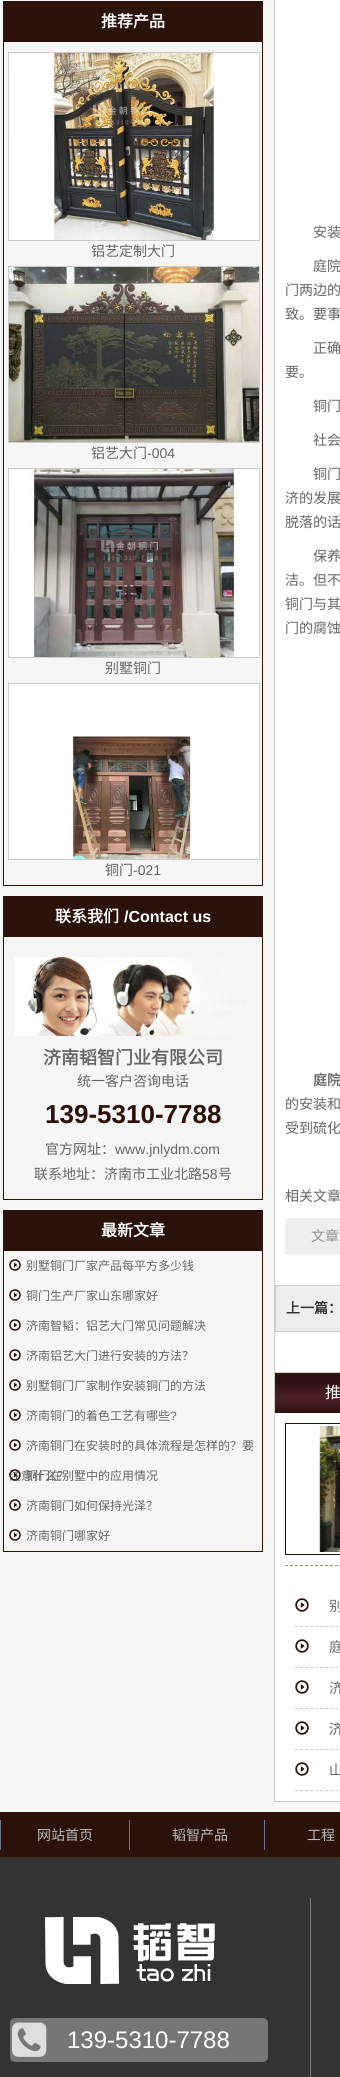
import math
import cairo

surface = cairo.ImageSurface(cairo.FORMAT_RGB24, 340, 2077)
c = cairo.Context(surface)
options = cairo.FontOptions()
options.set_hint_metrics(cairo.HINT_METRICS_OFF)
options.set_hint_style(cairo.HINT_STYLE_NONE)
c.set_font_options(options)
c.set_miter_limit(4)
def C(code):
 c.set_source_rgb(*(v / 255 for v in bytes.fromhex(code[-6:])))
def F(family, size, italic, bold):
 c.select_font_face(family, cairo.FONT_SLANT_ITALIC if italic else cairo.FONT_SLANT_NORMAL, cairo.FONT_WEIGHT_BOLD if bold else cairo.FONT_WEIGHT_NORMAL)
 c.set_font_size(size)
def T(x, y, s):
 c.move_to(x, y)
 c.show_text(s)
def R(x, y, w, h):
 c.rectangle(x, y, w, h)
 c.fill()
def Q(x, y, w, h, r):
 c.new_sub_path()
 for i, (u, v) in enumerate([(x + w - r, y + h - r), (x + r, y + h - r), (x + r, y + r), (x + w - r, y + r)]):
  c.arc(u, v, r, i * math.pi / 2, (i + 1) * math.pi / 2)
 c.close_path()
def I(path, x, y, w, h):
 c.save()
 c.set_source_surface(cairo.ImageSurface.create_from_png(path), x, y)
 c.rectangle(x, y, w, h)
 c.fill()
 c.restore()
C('f6f6f6')
c.paint()
c.rectangle(3.5,1.5,259,884)
C('2a110a')
c.set_line_width(1)
c.stroke()
R(4,2,258,40)
F('Noto Sans CJK SC',16,0,1)
C('ffffff')
T(101,27,'推荐产品')
c.rectangle(8.5,52.5,251,188)
C('cccccc')
c.stroke()
I('1.png',9,53,250,187)
F('Noto Sans CJK SC',14,0,0)
C('666666')
T(91,256,'铝艺定制大门')
c.rectangle(8.5,266.5,251,176)
C('cccccc')
c.stroke()
I('2.png',9,267,250,175)
C('666666')
T(91,458,'铝艺大门')
F('Liberation Sans',14,0,0)
T(147,458,'-004')
c.rectangle(8.5,468.5,251,189)
C('cccccc')
c.stroke()
I('3.png',9,469,250,188)
F('Noto Sans CJK SC',14,0,0)
C('666666')
T(105,673,'别墅铜门')
c.rectangle(8.5,683.5,251,176)
C('cccccc')
c.stroke()
I('4.png',9,684,250,175)
C('666666')
T(105,875,'铜门')
F('Liberation Sans',14,0,0)
T(133,875,'-021')
c.rectangle(3.5,896.5,259,303)
C('2a110a')
c.stroke()
R(4,897,258,40)
F('Noto Sans CJK SC',16,0,1)
C('ffffff')
T(55,922,'联系我们')
F('Liberation Sans',16,0,1)
T(124,922,'/Contact us')
I('5.png',14,957,232,79)
F('Noto Sans CJK SC',18,0,1)
C('666666')
T(43,1064,'济南韬智门业有限公司')
F('Noto Sans CJK SC',14,0,0)
T(77,1086,'统一客户咨询电话')
F('Liberation Sans',26,0,1)
C('2a110a')
T(45,1123,'139-5310-7788')
F('Noto Sans CJK SC',14,0,0)
C('666666')
T(45,1154,'官方网址：')
F('Liberation Sans',14,0,0)
T(115,1154,'www.jnlydm.com')
F('Noto Sans CJK SC',14,0,0)
T(34,1179,'联系地址：济南市工业北路')
F('Liberation Sans',14,0,0)
T(202,1179,'58')
F('Noto Sans CJK SC',14,0,0)
T(218,1179,'号')
c.rectangle(3.5,1210.5,259,341)
C('2a110a')
c.stroke()
R(4,1211,258,40)
F('Noto Sans CJK SC',16,0,1)
C('ffffff')
T(101,1236,'最新文章')
I('6.png',9,1259,12,12)
F('Noto Sans CJK SC',12,0,0)
C('666666')
T(26,1270,'别墅铜门厂家产品每平方多少钱')
I('6.png',9,1289,12,12)
T(26,1300,'铜门生产厂家山东哪家好')
I('6.png',9,1319,12,12)
T(26,1330,'济南智韬：铝艺大门常见问题解决')
I('6.png',9,1349,12,12)
T(26,1360,'济南铝艺大门进行安装的方法？')
I('6.png',9,1379,12,12)
T(26,1390,'别墅铜门厂家制作安装铜门的方法')
I('6.png',9,1409,12,12)
T(26,1420,'济南铜门的着色工艺有哪些')
F('Liberation Sans',12,0,0)
T(170,1420,'?')
I('6.png',9,1439,12,12)
F('Noto Sans CJK SC',12,0,0)
T(26,1450,'济南铜门在安装时的具体流程是怎样的？要')
T(9,1480,'注意什么？')
I('7.png',9,1469,12,12)
T(26,1480,'铜门在别墅中的应用情况')
I('6.png',9,1499,12,12)
T(26,1510,'济南铜门如何保持光泽？')
I('6.png',9,1529,12,12)
T(26,1540,'济南铜门哪家好')
C('ffffff')
c.rectangle(274.5,-.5,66,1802)
c.fill_preserve()
C('cccccc')
c.stroke()
F('Noto Sans CJK SC',14,0,0)
C('666666')
T(313,237,'安装')
T(313,271,'庭院')
T(285,295,'门两边的')
T(285,319,'致。要事')
T(313,353,'正确')
T(285,377,'要。')
T(313,411,'铜门')
T(313,445,'社会')
T(313,479,'铜门')
T(285,503,'济的发展')
T(285,527,'脱落的话')
T(313,561,'保养')
T(285,585,'洁。但不')
T(285,609,'铜门与其')
T(285,633,'门的腐蚀')
F('Noto Sans CJK SC',14,0,1)
T(313,1085,'庭院')
F('Noto Sans CJK SC',14,0,0)
T(285,1109,'的安装和')
T(285,1133,'受到硫化')
T(285,1201,'相关文章')
C('eeeeee')
c.rectangle(285.5,1218.5,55,36)
c.fill_preserve()
C('f5f2f2')
c.stroke()
C('928f8f')
T(311,1241,'文章')
C('eeeeee')
c.rectangle(275.5,1285.5,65,46)
c.fill_preserve()
C('cccccc')
c.stroke()
F('Noto Sans CJK SC',14,0,1)
C('333333')
T(286,1313,'上一篇：')
I('8.png',275,1373,65,40)
C('cccccc')
R(275,1372,65,1)
F('Noto Sans CJK SC',16,0,0)
C('ffffff')
T(325,1398,'推')
c.new_path()
c.move_to(285,1565.5)
c.line_to(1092,1565.5)
C('94896b')
c.set_dash([3,1.99])
c.stroke()
c.rectangle(285.5,1423.5,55,131)
C('2a110a')
c.set_dash([])
c.stroke()
I('9.png',318,1426,22,126)
c.new_path()
c.move_to(295,1626.5)
c.line_to(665,1626.5)
C('cccccc')
c.set_dash([3,2.03])
c.stroke()
I('10.png',295,1598,14,14)
F('Noto Sans CJK SC',14,0,0)
C('666666')
T(329,1611,'别')
c.new_path()
c.move_to(295,1667.5)
c.line_to(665,1667.5)
C('cccccc')
c.stroke()
I('10.png',295,1639,14,14)
C('666666')
T(329,1652,'庭')
c.new_path()
c.move_to(295,1708.5)
c.line_to(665,1708.5)
C('cccccc')
c.stroke()
I('10.png',295,1680,14,14)
C('666666')
T(329,1693,'济')
c.new_path()
c.move_to(295,1749.5)
c.line_to(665,1749.5)
C('cccccc')
c.stroke()
I('10.png',295,1721,14,14)
C('666666')
T(329,1734,'济')
c.new_path()
c.move_to(295,1790.5)
c.line_to(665,1790.5)
C('cccccc')
c.stroke()
I('10.png',295,1762,14,14)
C('666666')
T(329,1775,'山')
C('333333')
R(0,1857,340,220)
C('2a110a')
R(0,1812,340,45)
C('6a768e')
R(129,1820,1,30)
R(0,1820,1,30)
C('bbbbbb')
T(37,1840,'网站首页')
C('6a768e')
R(264,1820,1,30)
C('bbbbbb')
T(172,1840,'韬智产品')
T(307,1840,'工程')
I('11.png',45,1917,170,67)
C('767676')
Q(10,2018,258,44,5)
c.fill()
I('12.png',12,2022,35,35)
F('Liberation Sans',24,0,0)
C('ffffff')
T(67,2048,'139-5310-7788')
C('767676')
R(310,1898,1,179)
surface.write_to_png('o.png')
